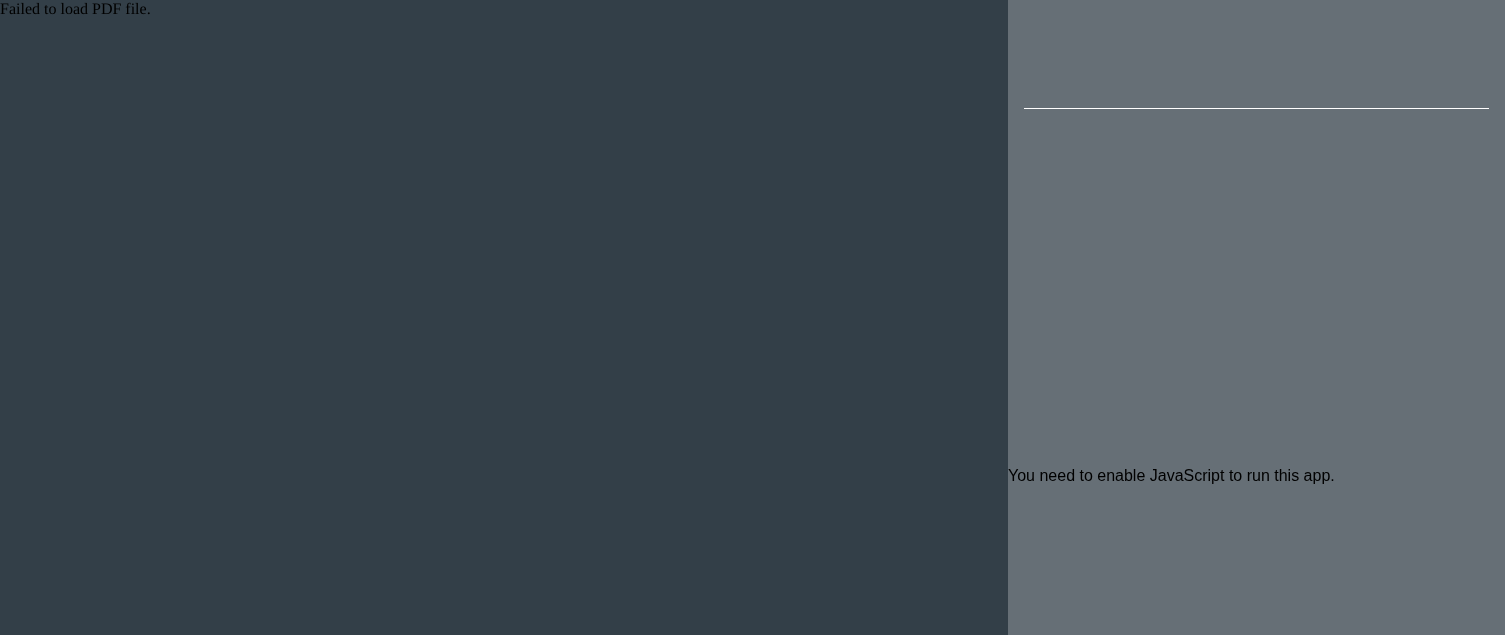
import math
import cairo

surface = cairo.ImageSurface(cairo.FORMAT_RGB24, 1505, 635)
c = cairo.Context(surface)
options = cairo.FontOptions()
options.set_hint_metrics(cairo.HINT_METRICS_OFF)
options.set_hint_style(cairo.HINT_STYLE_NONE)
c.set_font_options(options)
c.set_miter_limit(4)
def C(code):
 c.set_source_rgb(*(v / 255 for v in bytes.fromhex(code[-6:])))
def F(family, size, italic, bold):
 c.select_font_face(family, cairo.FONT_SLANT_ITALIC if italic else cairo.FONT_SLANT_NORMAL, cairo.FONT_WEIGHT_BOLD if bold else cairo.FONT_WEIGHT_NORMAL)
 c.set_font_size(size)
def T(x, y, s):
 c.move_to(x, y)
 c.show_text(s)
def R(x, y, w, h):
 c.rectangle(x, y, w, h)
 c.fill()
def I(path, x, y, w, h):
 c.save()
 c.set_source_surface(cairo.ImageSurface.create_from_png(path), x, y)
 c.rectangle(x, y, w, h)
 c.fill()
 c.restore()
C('333f48')
c.paint()
F('Liberation Serif',16,0,0)
C('000000')
T(0,14,'Failed to load PDF file.')
C('666f76')
R(1008,0,497,635)
C('ffffff')
R(1024,108,465,1)
I('1.png',1008,469,326,15)
surface.write_to_png('o.png')
